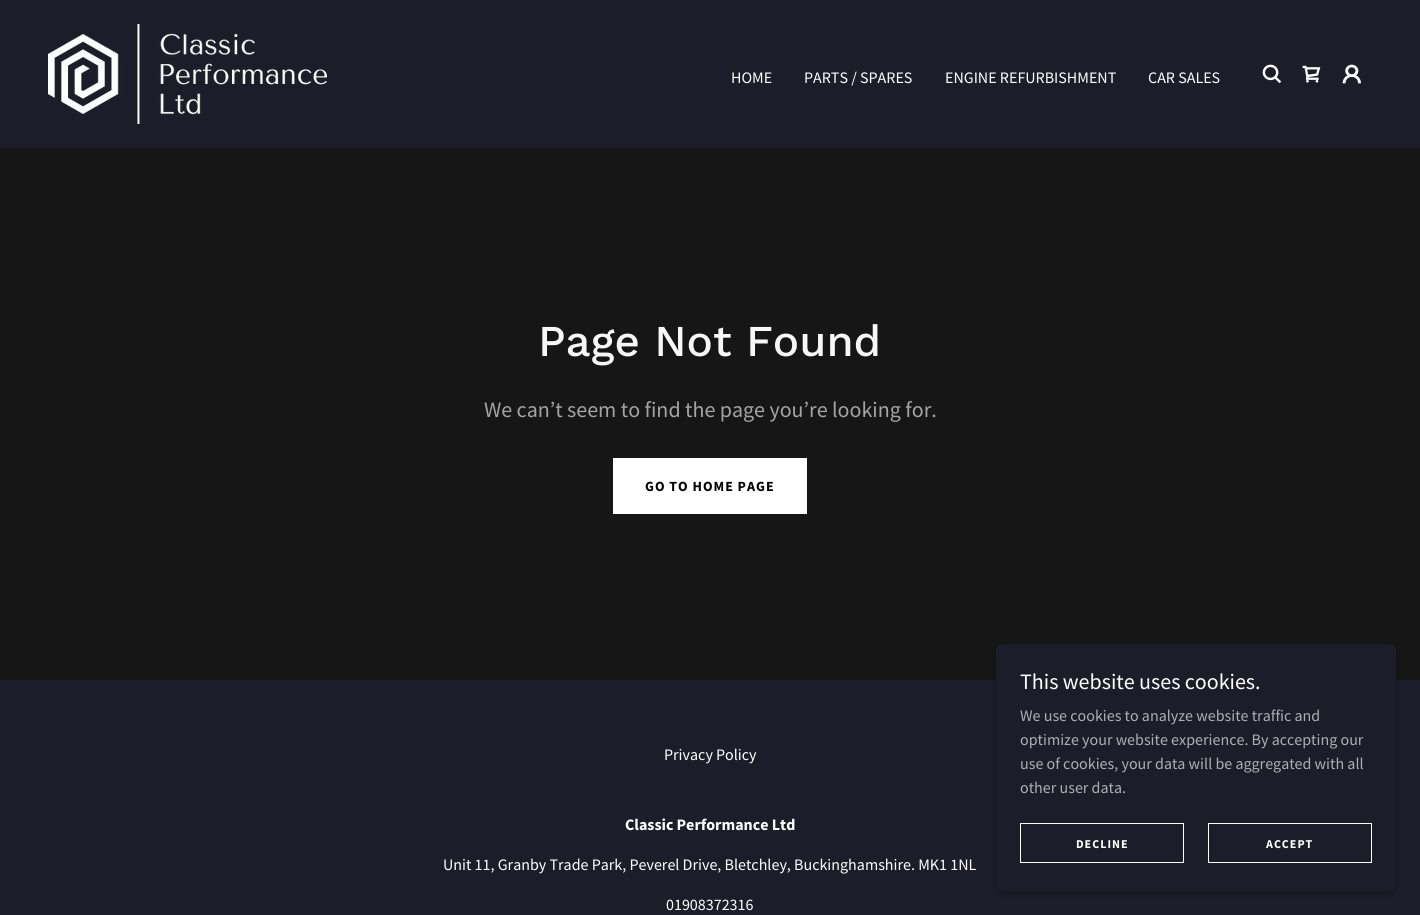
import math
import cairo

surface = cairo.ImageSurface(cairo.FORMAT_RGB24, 1420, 915)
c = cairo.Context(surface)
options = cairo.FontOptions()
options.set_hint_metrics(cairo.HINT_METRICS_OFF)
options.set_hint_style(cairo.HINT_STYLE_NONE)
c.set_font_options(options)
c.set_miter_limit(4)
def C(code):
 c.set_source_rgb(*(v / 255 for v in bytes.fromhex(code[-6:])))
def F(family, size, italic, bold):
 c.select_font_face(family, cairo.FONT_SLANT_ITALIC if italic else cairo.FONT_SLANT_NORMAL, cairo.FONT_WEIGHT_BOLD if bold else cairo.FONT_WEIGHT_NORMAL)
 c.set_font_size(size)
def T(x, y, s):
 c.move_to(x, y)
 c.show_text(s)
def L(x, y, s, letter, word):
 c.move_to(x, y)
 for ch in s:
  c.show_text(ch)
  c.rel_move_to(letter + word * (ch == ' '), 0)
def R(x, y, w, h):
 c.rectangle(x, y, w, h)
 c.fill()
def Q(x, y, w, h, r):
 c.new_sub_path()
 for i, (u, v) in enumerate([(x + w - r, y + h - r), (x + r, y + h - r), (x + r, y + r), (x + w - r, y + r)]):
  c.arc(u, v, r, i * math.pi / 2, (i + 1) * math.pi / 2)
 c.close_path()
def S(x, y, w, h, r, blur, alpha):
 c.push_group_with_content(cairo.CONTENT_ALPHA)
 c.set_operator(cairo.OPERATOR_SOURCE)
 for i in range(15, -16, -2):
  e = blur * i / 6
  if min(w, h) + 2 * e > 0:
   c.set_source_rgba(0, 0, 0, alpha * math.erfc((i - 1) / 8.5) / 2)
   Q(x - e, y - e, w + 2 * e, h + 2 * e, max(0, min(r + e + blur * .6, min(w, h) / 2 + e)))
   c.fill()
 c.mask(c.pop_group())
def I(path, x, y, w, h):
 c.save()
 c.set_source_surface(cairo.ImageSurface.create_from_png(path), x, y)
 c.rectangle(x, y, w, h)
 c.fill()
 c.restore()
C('1d1d29')
c.paint()
I('1.png',48,24,279,100)
F('Source Sans Pro',16,0,0)
C('ffffff')
T(731,83,'HOME')
T(804,83,'PARTS / SPARES')
T(945,83,'ENGINE REFURBISHMENT')
T(1148,83,'CAR SALES')
I('2.png',1262,64,20,20)
I('3.png',1302,65,19,18)
I('4.png',1342,64,19,20)
C('161616')
R(0,148,1420,532)
F('Work Sans Medium',44,0,0)
C('f7f7f7')
T(538,356,'Page Not Found')
F('Source Sans Pro',22,0,0)
C('a4a4a4')
T(484,417,'We can’t seem to find the page you’re looking for.')
C('ffffff')
R(613,458,194,56)
F('Source Sans Pro',14,0,1)
C('000000')
L(645,491,'GO TO HOME PAGE',1,0)
F('Source Sans Pro',16,0,0)
C('ffffff')
T(664,760,'Privacy Policy')
F('Source Sans Pro',16,0,1)
T(625,830,'Classic Performance Ltd')
F('Source Sans Pro',16,0,0)
T(443,870,'Unit 11, Granby Trade Park, Peverel Drive, Bletchley, Buckinghamshire. MK1 1NL')
T(666,910,'01908372316')
C('000000')
S(996,646,400,247,7,3,.3)
C('1d1d29')
Q(996,644,400,247,7)
c.fill()
F('Source Sans Pro',22,0,0)
C('ffffff')
T(1020,689,'This website uses cookies.')
F('Source Sans Pro',16,0,0)
C('aeaeb3')
T(1020,721,'We use cookies to analyze website traffic and')
T(1020,745,'optimize your website experience. By accepting our')
T(1020,769,'use of cookies, your data will be aggregated with all')
T(1020,793,'other user data.')
c.rectangle(1020.5,823.5,163,39)
C('ffffff')
c.set_line_width(1)
c.stroke()
F('Source Sans Pro',12,0,1)
L(1076,848,'DECLINE',1,0)
c.rectangle(1208.5,823.5,163,39)
c.stroke()
L(1266,848,'ACCEPT',1,0)
surface.write_to_png('o.png')
